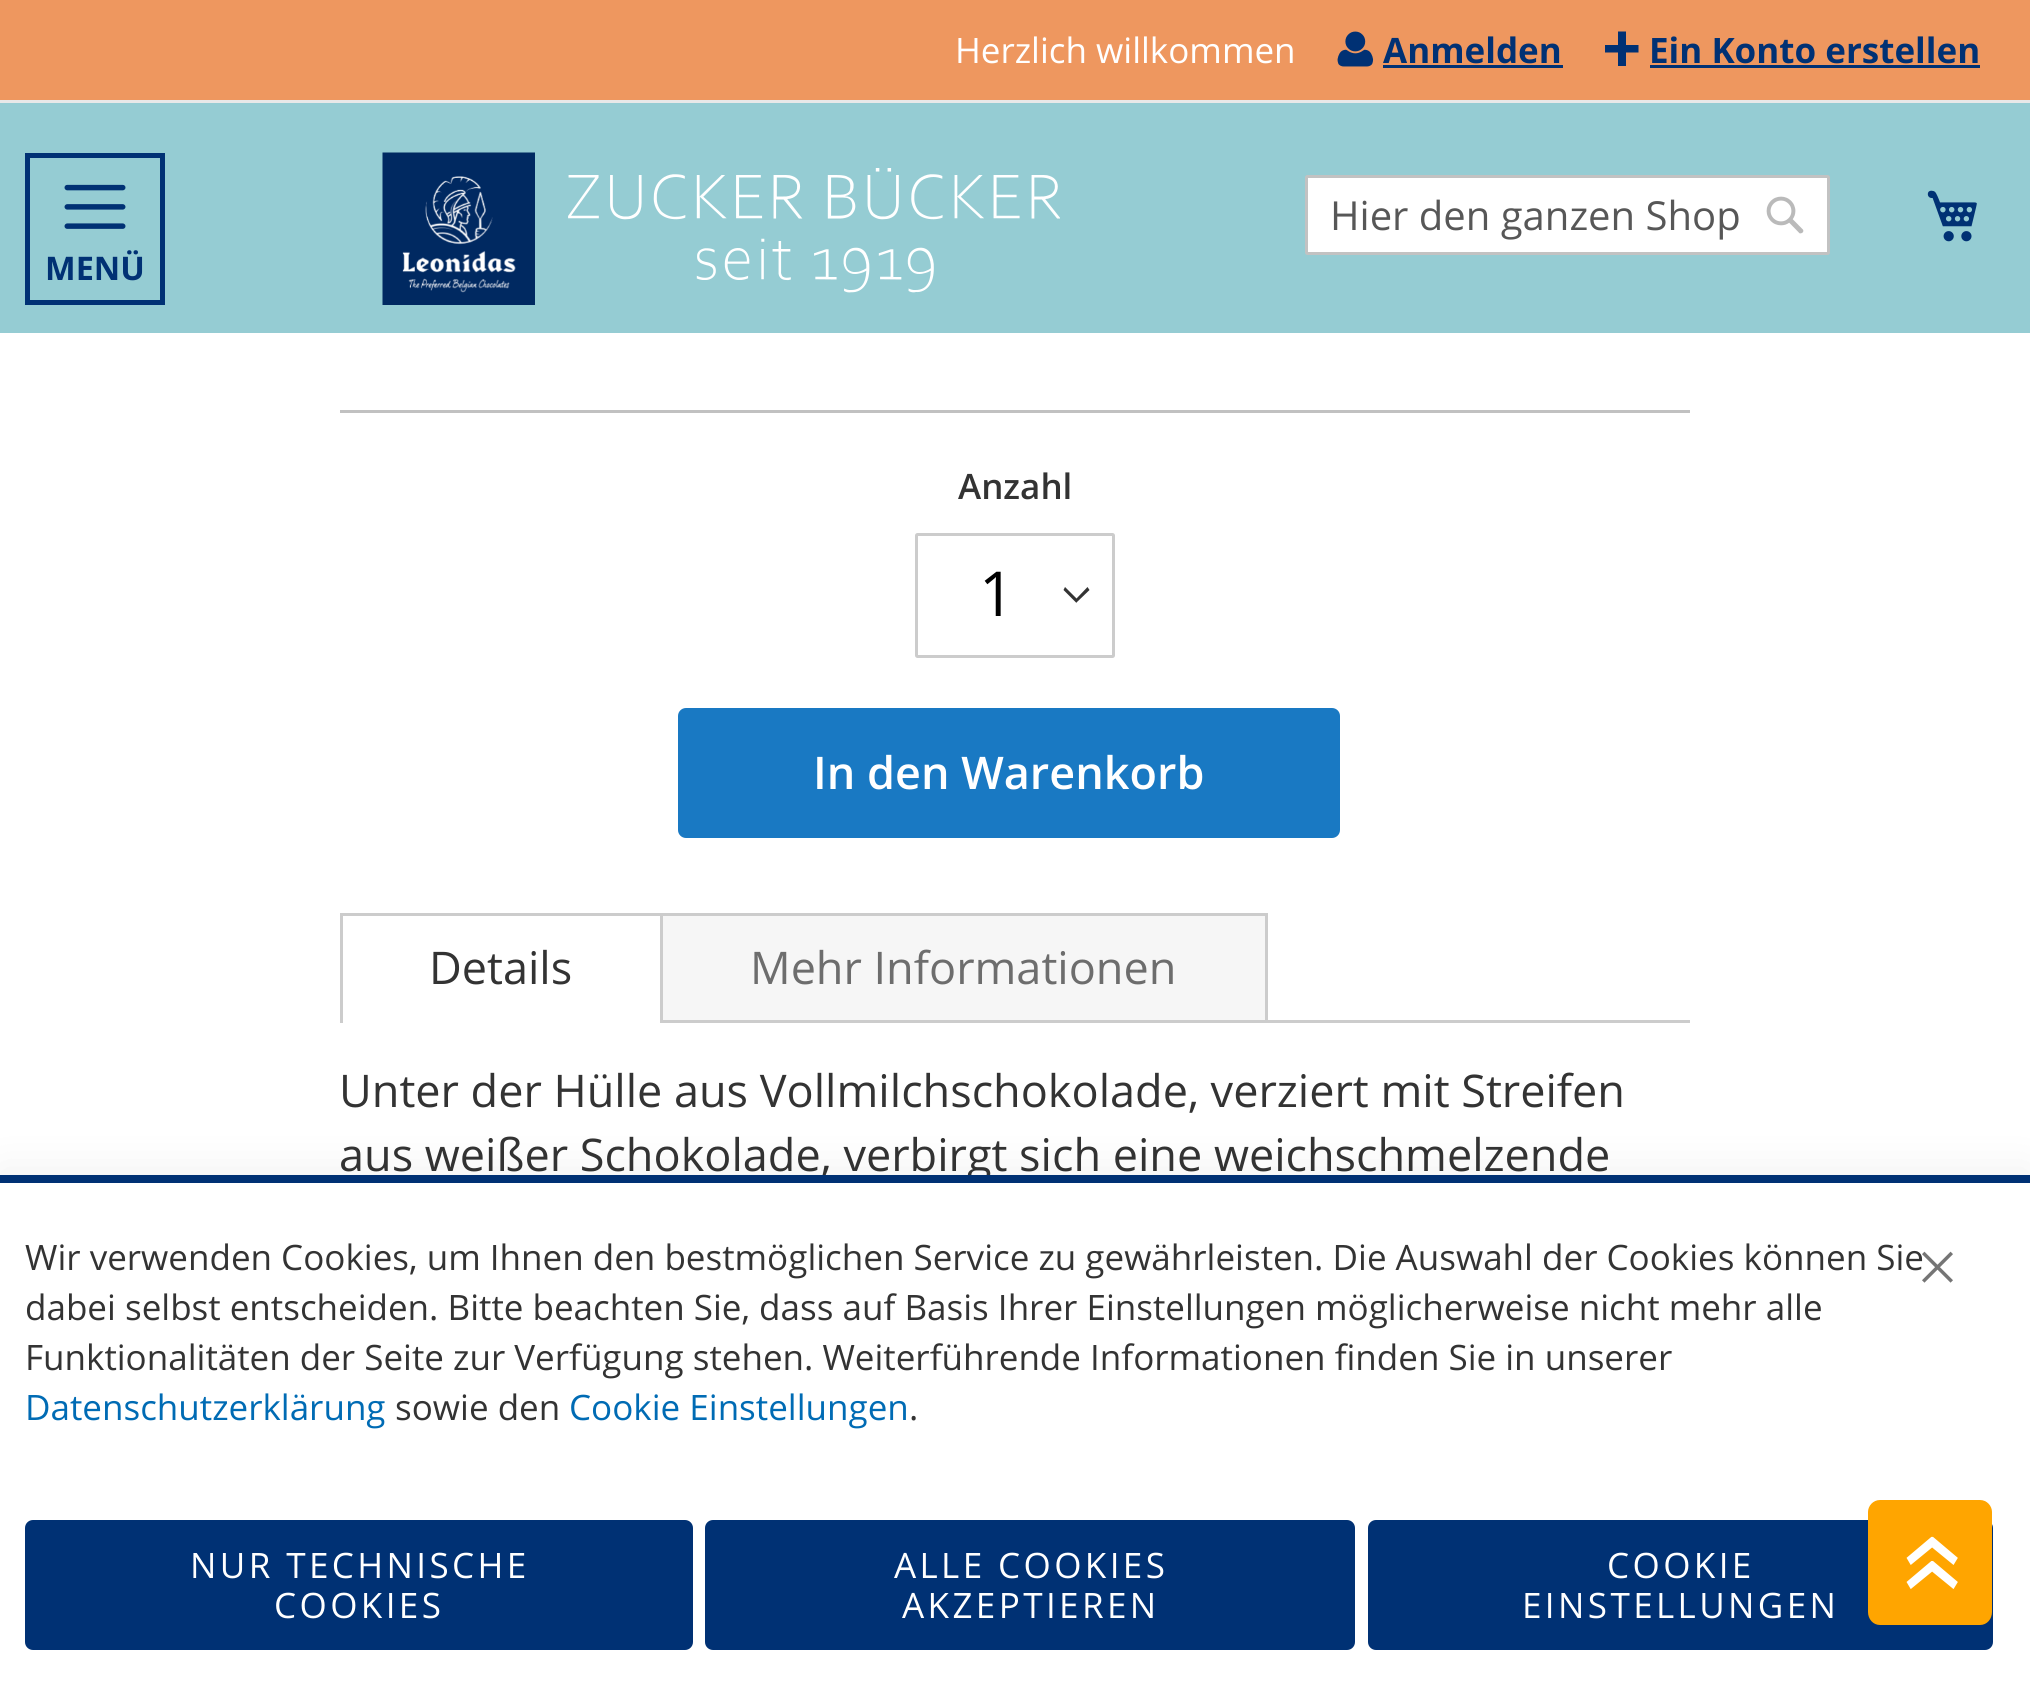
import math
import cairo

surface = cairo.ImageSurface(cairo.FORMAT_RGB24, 2030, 1686)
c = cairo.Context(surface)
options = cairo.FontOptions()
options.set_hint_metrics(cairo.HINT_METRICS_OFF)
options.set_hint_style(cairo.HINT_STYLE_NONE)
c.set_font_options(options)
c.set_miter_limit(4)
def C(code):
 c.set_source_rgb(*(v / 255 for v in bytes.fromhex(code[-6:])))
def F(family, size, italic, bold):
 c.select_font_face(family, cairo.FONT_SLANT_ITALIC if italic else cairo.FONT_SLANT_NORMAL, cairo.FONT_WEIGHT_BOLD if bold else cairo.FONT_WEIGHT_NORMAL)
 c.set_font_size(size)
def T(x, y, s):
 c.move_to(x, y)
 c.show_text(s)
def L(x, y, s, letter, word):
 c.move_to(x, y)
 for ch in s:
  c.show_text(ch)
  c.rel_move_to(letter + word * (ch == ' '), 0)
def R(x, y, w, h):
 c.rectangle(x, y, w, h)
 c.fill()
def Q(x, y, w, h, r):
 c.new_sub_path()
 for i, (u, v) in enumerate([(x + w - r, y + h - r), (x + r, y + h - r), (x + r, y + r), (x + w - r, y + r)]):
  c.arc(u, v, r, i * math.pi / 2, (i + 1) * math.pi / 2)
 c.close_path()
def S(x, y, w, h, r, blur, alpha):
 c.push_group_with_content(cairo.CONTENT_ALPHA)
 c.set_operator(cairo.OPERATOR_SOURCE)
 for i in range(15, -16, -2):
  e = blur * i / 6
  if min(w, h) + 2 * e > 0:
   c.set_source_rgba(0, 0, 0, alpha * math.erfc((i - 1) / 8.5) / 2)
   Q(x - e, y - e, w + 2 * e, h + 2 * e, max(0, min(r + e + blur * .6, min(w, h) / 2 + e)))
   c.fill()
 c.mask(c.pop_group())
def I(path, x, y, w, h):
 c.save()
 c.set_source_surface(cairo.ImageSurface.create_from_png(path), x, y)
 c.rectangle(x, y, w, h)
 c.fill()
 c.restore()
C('ffffff')
c.paint()
C('95ccd3')
R(0,103,2030,230)
C('ee975f')
R(0,0,2030,100)
C('e8e8e8')
R(0,100,2030,3)
F('Open Sans',35,0,0)
C('ffffff')
T(955,63,'Herzlich willkommen')
I('1.png',1337,31,37,36)
F('Open Sans',35,0,1)
C('003174')
T(1383,63,'Anmelden')
R(1383,65,180,3)
c.new_path()
c.move_to(1618,52.5)
c.line_to(1605,52.5)
c.line_to(1605,45)
c.line_to(1618,45)
c.line_to(1618,31.5)
c.line_to(1626,31.5)
c.line_to(1626,45)
c.line_to(1638.5,45)
c.line_to(1638.5,52.5)
c.line_to(1626,52.5)
c.line_to(1626,66)
c.line_to(1618,66)
c.close_path()
c.fill()
T(1649,63,'Ein Konto erstellen')
R(1650,65,330,3)
I('2.png',382,152,153,153)
I('3.png',568,168,492,125)
C('ffffff')
Q(1306.5,176.5,522,77,1)
c.fill_preserve()
C('c2c2c2')
c.set_line_width(3)
c.stroke()
F('Open Sans',40,0,0)
C('575757')
T(1330,230,'Hier den ganzen Shop')
I('4.png',1766,196,38,38)
I('5.png',1927,190,50,52)
c.rectangle(27.5,155.5,135,147)
C('003174')
c.set_line_width(5)
c.stroke()
I('6.png',64,184,62,45)
F('Open Sans',32.5,0,1)
T(45,280,'MENÜ')
C('c1c1c1')
R(340,410,1350,3)
F('Open Sans SemiBold',35,0,0)
C('333333')
T(958,499,'Anzahl')
c.set_fill_rule(cairo.FILL_RULE_EVEN_ODD)
c.new_path()
c.move_to(1076.5,602.5)
c.line_to(1089.5,590)
c.line_to(1087.5,587)
c.line_to(1076.5,598.5)
c.line_to(1065,587)
c.line_to(1063.5,590)
c.line_to(1076.5,603)
c.close_path()
c.fill()
Q(916.5,534.5,197,122,1)
C('cccccc')
c.set_line_width(3)
c.stroke()
F('Open Sans',62,0,0)
C('000000')
T(979,616,'1')
C('1979c3')
Q(679.5,709.5,659,127,6.5)
c.fill_preserve()
c.stroke()
F('Open Sans SemiBold',45,0,0)
C('ffffff')
T(813,789,'In den Warenkorb')
C('cccccc')
R(340,913,928,3)
R(340,913,3,110)
F('Open Sans',45,0,0)
C('333333')
T(429,984,'Details')
C('f6f6f6')
R(663,916,602,104)
C('cccccc')
R(1265,913,3,107)
R(660,913,3,107)
C('6d6d6d')
T(750,984,'Mehr Informationen')
C('cccccc')
R(660,1020,1030,3)
C('333333')
T(339,1107,'Unter der Hülle aus Vollmilchschokolade, verziert mit Streifen')
T(339,1171,'aus weißer Schokolade, verbirgt sich eine weichschmelzende')
C('000000')
S(0,1170,2030,513,0,22.5,.06)
C('ffffff')
R(0,1183,2030,503)
C('003174')
R(0,1175,2030,8)
F('Open Sans',35,0,0)
C('333333')
T(25,1270,'Wir verwenden Cookies, um Ihnen den bestmöglichen Service zu gewährleisten. Die Auswahl der Cookies können Sie')
T(25,1320,'dabei selbst entscheiden. Bitte beachten Sie, dass auf Basis Ihrer Einstellungen möglicherweise nicht mehr alle')
T(25,1370,'Funktionalitäten der Seite zur Verfügung stehen. Weiterführende Informationen finden Sie in unserer')
C('006bb4')
T(25,1420,'Datenschutzerklärung')
C('333333')
T(395,1420,'sowie den')
C('006bb4')
T(569,1420,'Cookie Einstellungen')
C('333333')
T(909,1420,'.')
C('003174')
Q(25,1520,668,130,8)
c.fill()
C('ffffff')
L(190,1578,'NUR TECHNISCHE',3.4,0)
L(274,1618,'COOKIES',3.4,0)
C('003174')
Q(705,1520,650,130,8)
c.fill()
C('ffffff')
L(894,1578,'ALLE COOKIES',3.4,0)
L(902,1618,'AKZEPTIEREN',3.4,0)
C('003174')
Q(1368,1520,625,130,8)
c.fill()
C('ffffff')
L(1607,1578,'COOKIE',3.4,0)
L(1522,1618,'EINSTELLUNGEN',3.4,0)
I('7.png',1922,1251,31,32)
C('ffa500')
c.set_fill_rule(cairo.FILL_RULE_WINDING)
c.new_path()
c.move_to(1868,1612)
c.line_to(1868,1512)
c.curve_to(1868,1506,1873,1500,1880,1500)
c.line_to(1980,1500)
c.curve_to(1987,1500,1992,1506,1992,1512)
c.line_to(1992,1612)
c.curve_to(1992,1619,1987,1625,1980,1625)
c.line_to(1880,1625)
c.curve_to(1873,1625,1868,1619,1868,1612)
c.close_path()
c.fill()
F('Open Sans',125,0,0)
C('ffffff')
c.save()
c.translate(1965,1594)
c.rotate(-90 * math.pi / 180)
T(0,0,'»')
c.restore()
surface.write_to_png('o.png')
